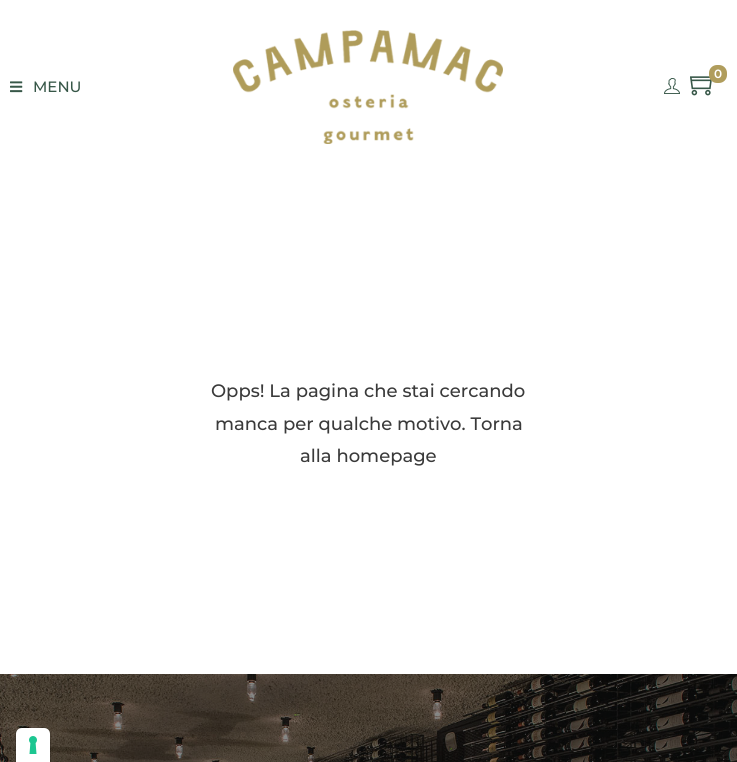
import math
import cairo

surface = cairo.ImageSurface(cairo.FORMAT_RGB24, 737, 762)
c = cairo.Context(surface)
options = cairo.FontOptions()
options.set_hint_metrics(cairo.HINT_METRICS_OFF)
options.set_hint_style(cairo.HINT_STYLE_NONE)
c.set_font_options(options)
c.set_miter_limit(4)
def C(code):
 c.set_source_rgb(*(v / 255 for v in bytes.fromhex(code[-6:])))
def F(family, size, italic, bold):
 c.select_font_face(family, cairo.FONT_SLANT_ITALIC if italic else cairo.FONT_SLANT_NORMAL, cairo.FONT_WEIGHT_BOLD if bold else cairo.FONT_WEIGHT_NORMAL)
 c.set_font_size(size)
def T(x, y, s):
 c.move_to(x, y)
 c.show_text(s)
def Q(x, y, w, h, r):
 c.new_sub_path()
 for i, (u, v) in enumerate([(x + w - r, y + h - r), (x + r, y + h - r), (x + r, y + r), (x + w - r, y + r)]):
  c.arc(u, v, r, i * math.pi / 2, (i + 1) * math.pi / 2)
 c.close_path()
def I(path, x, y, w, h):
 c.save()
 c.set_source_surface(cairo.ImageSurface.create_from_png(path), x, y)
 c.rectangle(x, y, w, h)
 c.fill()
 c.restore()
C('ffffff')
c.paint()
I('1.png',233,30,270,114)
I('2.png',690,76,22,20)
C('b09d5d')
Q(709,65,18,18,8)
c.fill()
F('Montserrat SemiBold',12,0,0)
C('ffffff')
T(714,78,'0')
I('3.png',664,78,16,16)
I('4.png',10,81,13,12)
F('Montserrat Medium',15,0,0)
C('375748')
T(33,92,'MENU')
F('Montserrat Medium',18,0,0)
C('3a3a3a')
T(211,397,'Opps! La pagina che stai cercando')
T(215,430,'manca per qualche motivo. Torna')
T(300,462,'alla homepage')
I('5.png',0,674,737,88)
c.new_path()
c.move_to(22,727.5)
c.line_to(44,727.5)
c.curve_to(47.5,727.5,50.5,730.5,50.5,734)
c.line_to(50.5,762.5)
c.line_to(15.5,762.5)
c.line_to(15.5,734)
c.curve_to(15.5,730.5,18.5,727.5,22,727.5)
c.close_path()
c.set_source_rgba(0,0,0,0.15)
c.set_line_width(1)
c.stroke()
C('ffffff')
c.new_path()
c.move_to(22,728)
c.line_to(44,728)
c.curve_to(47.5,728,50,730.5,50,734)
c.line_to(50,762)
c.line_to(16,762)
c.line_to(16,734)
c.curve_to(16,730.5,18.5,728,22,728)
c.close_path()
c.fill()
I('6.png',29,736,8,18)
surface.write_to_png('o.png')
